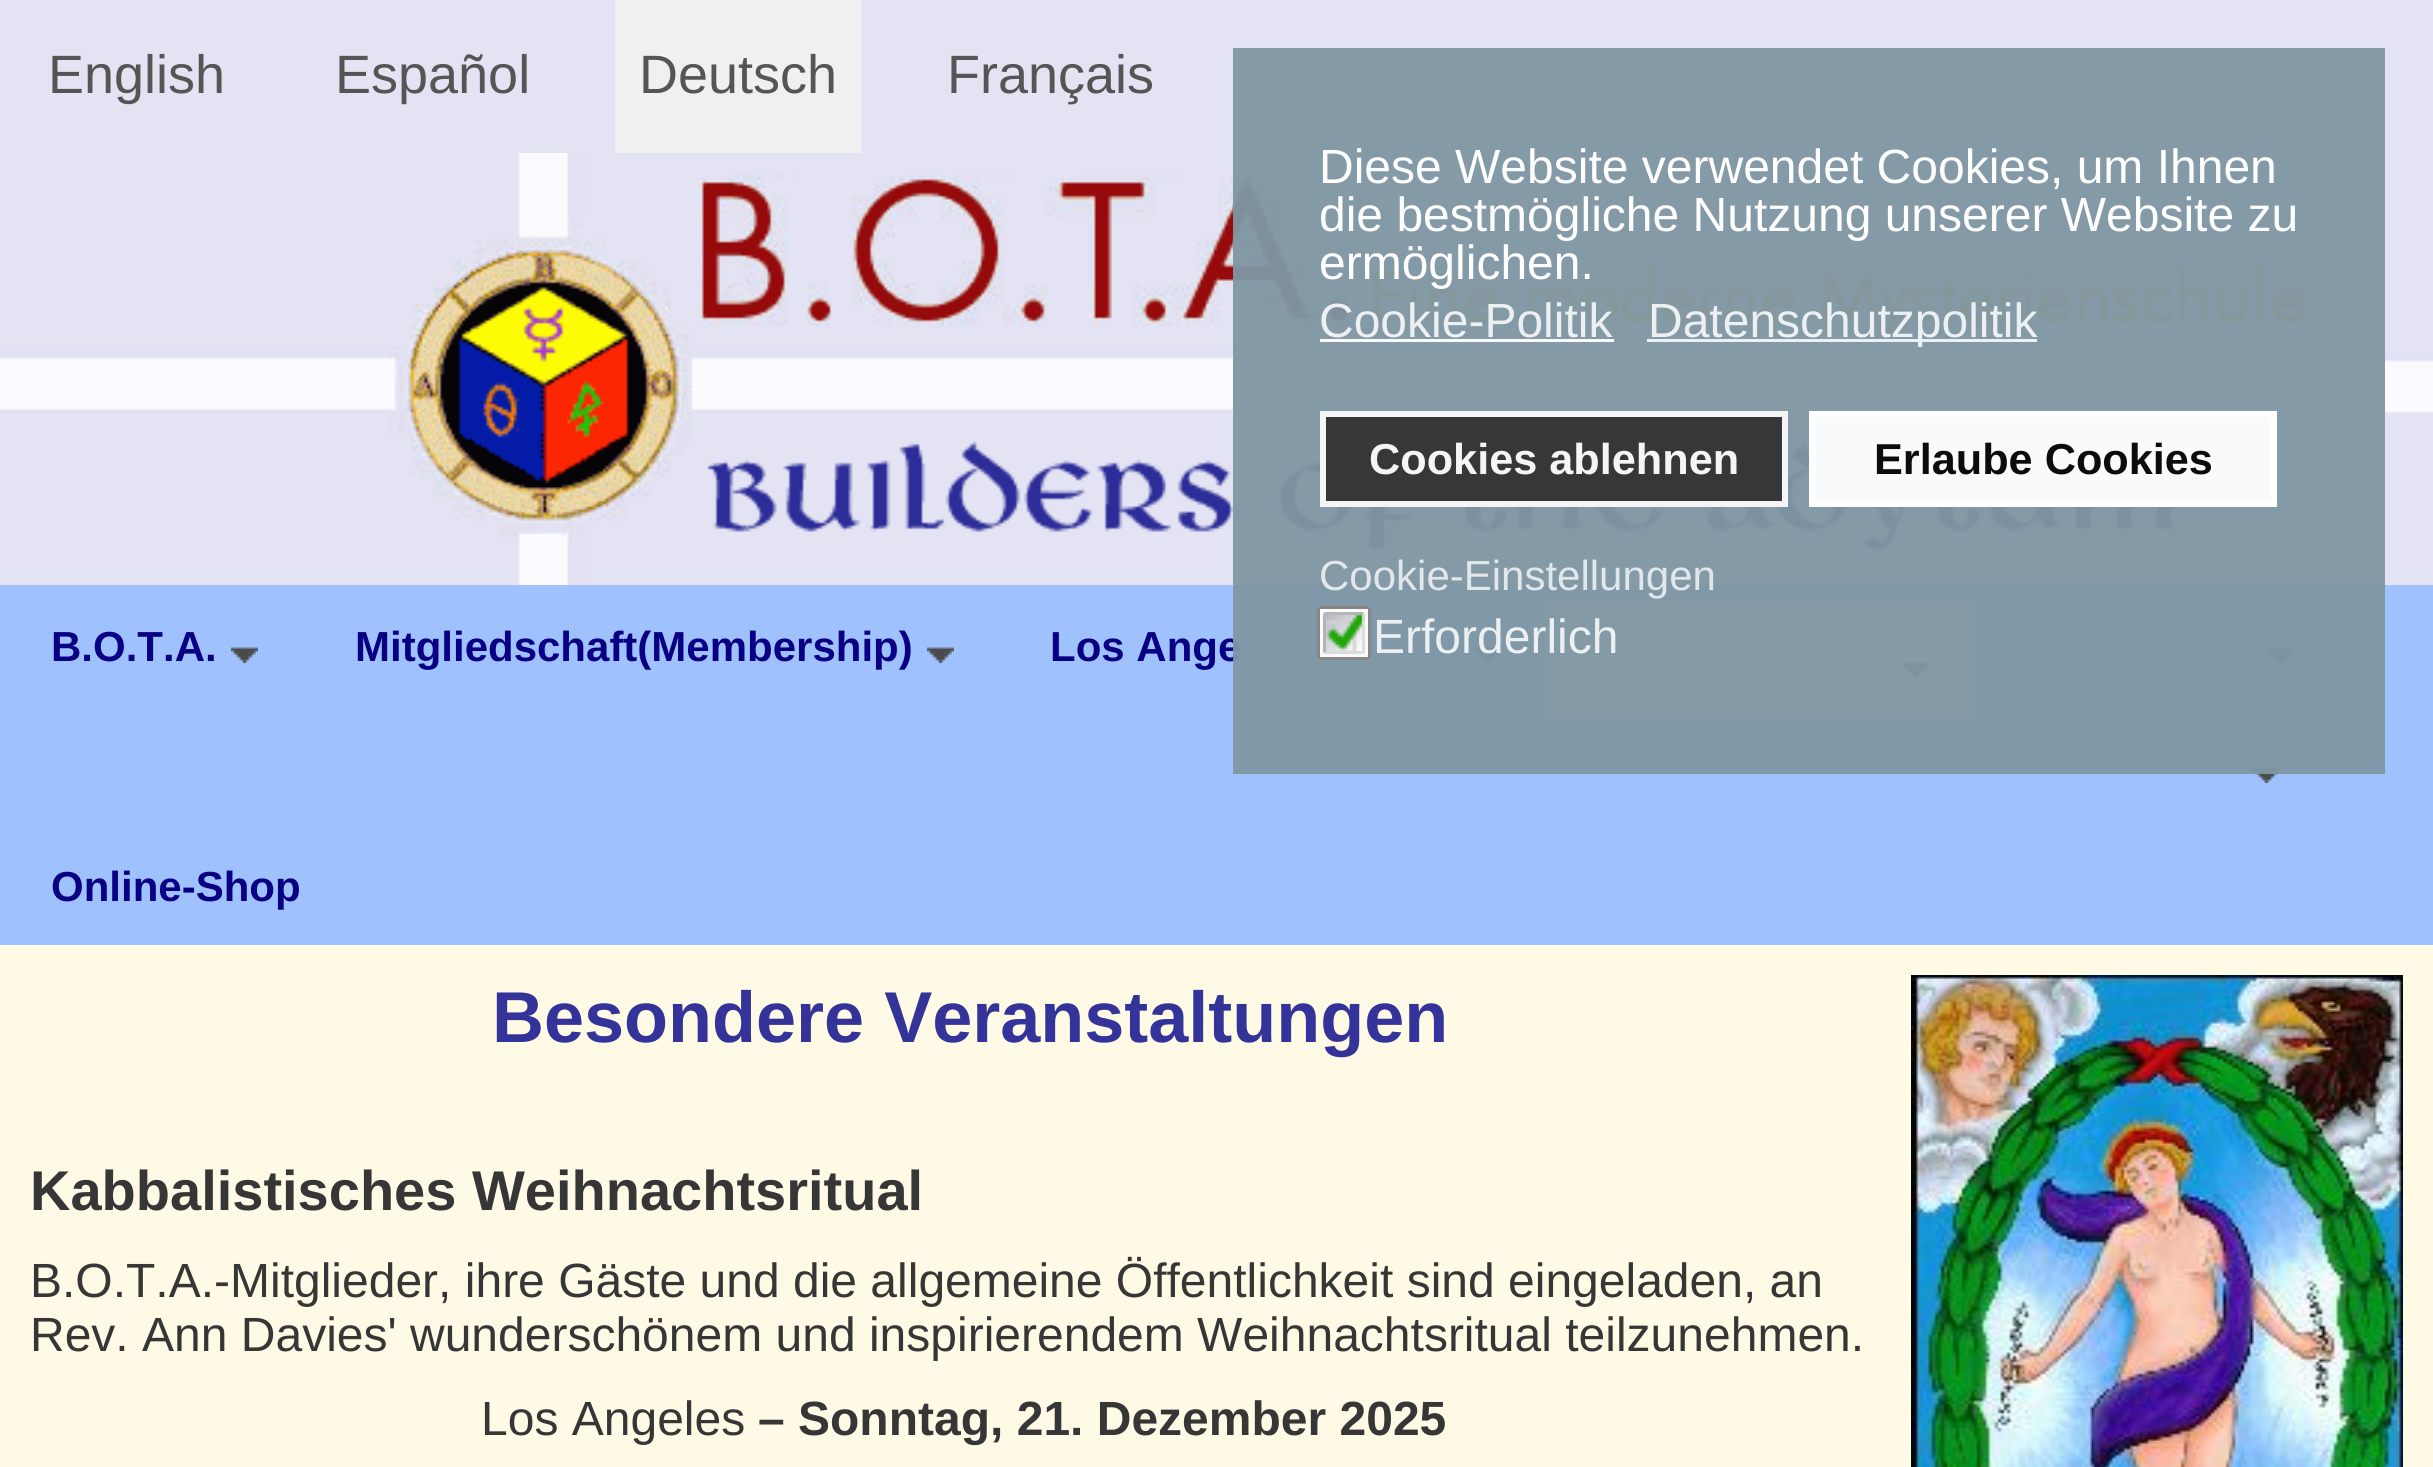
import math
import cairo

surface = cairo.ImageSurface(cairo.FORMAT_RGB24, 2433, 1467)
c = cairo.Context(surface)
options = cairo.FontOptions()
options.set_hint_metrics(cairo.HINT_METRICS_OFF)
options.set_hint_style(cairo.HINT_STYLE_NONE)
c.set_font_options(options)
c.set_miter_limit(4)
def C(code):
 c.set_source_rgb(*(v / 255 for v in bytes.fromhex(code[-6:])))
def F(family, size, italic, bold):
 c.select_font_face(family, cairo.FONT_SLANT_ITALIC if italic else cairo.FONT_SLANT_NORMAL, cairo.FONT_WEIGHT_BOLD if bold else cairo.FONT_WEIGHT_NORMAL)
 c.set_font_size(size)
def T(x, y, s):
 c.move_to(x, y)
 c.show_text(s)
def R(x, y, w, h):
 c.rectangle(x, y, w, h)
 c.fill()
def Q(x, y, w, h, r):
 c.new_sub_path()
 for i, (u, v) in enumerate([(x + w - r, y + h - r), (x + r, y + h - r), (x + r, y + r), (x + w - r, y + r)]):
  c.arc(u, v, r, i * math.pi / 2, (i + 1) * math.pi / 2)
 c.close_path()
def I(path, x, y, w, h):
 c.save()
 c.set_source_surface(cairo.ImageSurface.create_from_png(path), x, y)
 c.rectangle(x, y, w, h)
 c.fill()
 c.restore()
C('e3e3f3')
c.paint()
F('Liberation Sans',54,0,0)
C('555555')
T(48,93,'English')
T(335,93,'Español')
C('f0f0f0')
R(615,0,246,153)
C('555555')
T(639,93,'Deutsch')
T(947,93,'Français')
I('1.png',0,153,2433,432)
C('9fc2ff')
R(0,585,2433,360)
I('2.png',231,647,27,16)
F('Liberation Sans',42,0,1)
C('090083')
T(51,661,'B.O.T.A.')
I('2.png',927,647,27,16)
T(355,661,'Mitgliedschaft(Membership)')
I('3.png',1473,647,27,16)
T(1050,661,'Los Ange')
C('e0e0f0')
R(1545,600,429,120)
I('4.png',1902,662,27,16)
I('3.png',2268,647,27,16)
I('3.png',2253,767,27,16)
C('090083')
T(51,901,'Online-Shop')
C('fffae6')
R(0,945,2433,522)
F('Liberation Sans',72,0,1)
C('333399')
T(492,1042,'Besondere Veranstaltungen')
I('5.png',1911,975,492,492)
F('Liberation Sans',56,0,1)
C('363636')
T(30,1210,'Kabbalistisches Weihnachtsritual')
F('Liberation Sans',48,0,0)
T(30,1297,'B.O.T.A.-Mitglieder, ihre Gäste und die allgemeine Öffentlichkeit sind eingeladen, an')
T(30,1351,'Rev. Ann Davies\' wunderschönem und inspirierendem Weihnachtsritual teilzunehmen.')
T(481,1435,'Los Angeles')
F('Liberation Sans',48,0,1)
T(758,1435,'– Sonntag, 21. Dezember 2025')
c.set_source_rgba(0.498,0.592,0.639,0.95)
R(1233,48,1152,726)
F('Liberation Sans',48,0,0)
C('fefefe')
T(1319,183,'Diese Website verwendet Cookies, um Ihnen')
T(1319,231,'die bestmögliche Nutzung unserer Website zu')
T(1319,279,'ermöglichen.')
C('edf0f2')
T(1319,337,'Cookie-Politik')
C('fbfbfd')
R(1320,339,294,3)
C('edf0f2')
R(1647,339,390,3)
T(1648,337,'Datenschutzpolitik')
c.set_source_rgba(0.2,0.2,0.2,0.95)
c.rectangle(1323,414,462,90)
c.fill_preserve()
C('f5f5f5')
c.set_line_width(6)
c.stroke()
F('Liberation Sans',43.25,0,1)
T(1369,474,'Cookies ablehnen')
c.set_source_rgba(1,1,1,0.95)
c.rectangle(1812,414,462,90)
c.fill_preserve()
C('ffffff')
c.stroke()
C('0c0c0d')
T(1874,474,'Erlaube Cookies')
F('Liberation Sans',42,0,0)
C('e1e7ea')
T(1319,590,'Cookie-Einstellungen')
c.set_source_rgba(1,1,1,0.95)
Q(1317,606,54,54,3)
c.fill()
Q(1318.5,607.5,51,51,1.5)
c.set_source_rgba(0.502,0.502,0.502,0.95)
c.set_line_width(3)
c.stroke()
I('6.png',1323,612,42,42)
c.new_path()
c.move_to(1363,614)
c.line_to(1363.5,615)
c.line_to(1363.5,645)
c.curve_to(1363.5,654,1365,652.5,1356,652.5)
c.line_to(1326,652.5)
c.line_to(1325,652)
c.set_source_rgba(0.863,0.867,0.871,0.95)
c.stroke()
c.new_path()
c.move_to(1325,652)
c.line_to(1324.5,651)
c.line_to(1324.5,621)
c.curve_to(1324.5,612,1323,613.5,1332,613.5)
c.line_to(1362,613.5)
c.line_to(1363,614)
c.set_source_rgba(0.702,0.702,0.702,0.95)
c.stroke()
F('Liberation Sans',48,0,0)
C('edf0f2')
T(1373,653,'Erforderlich')
surface.write_to_png('o.png')
